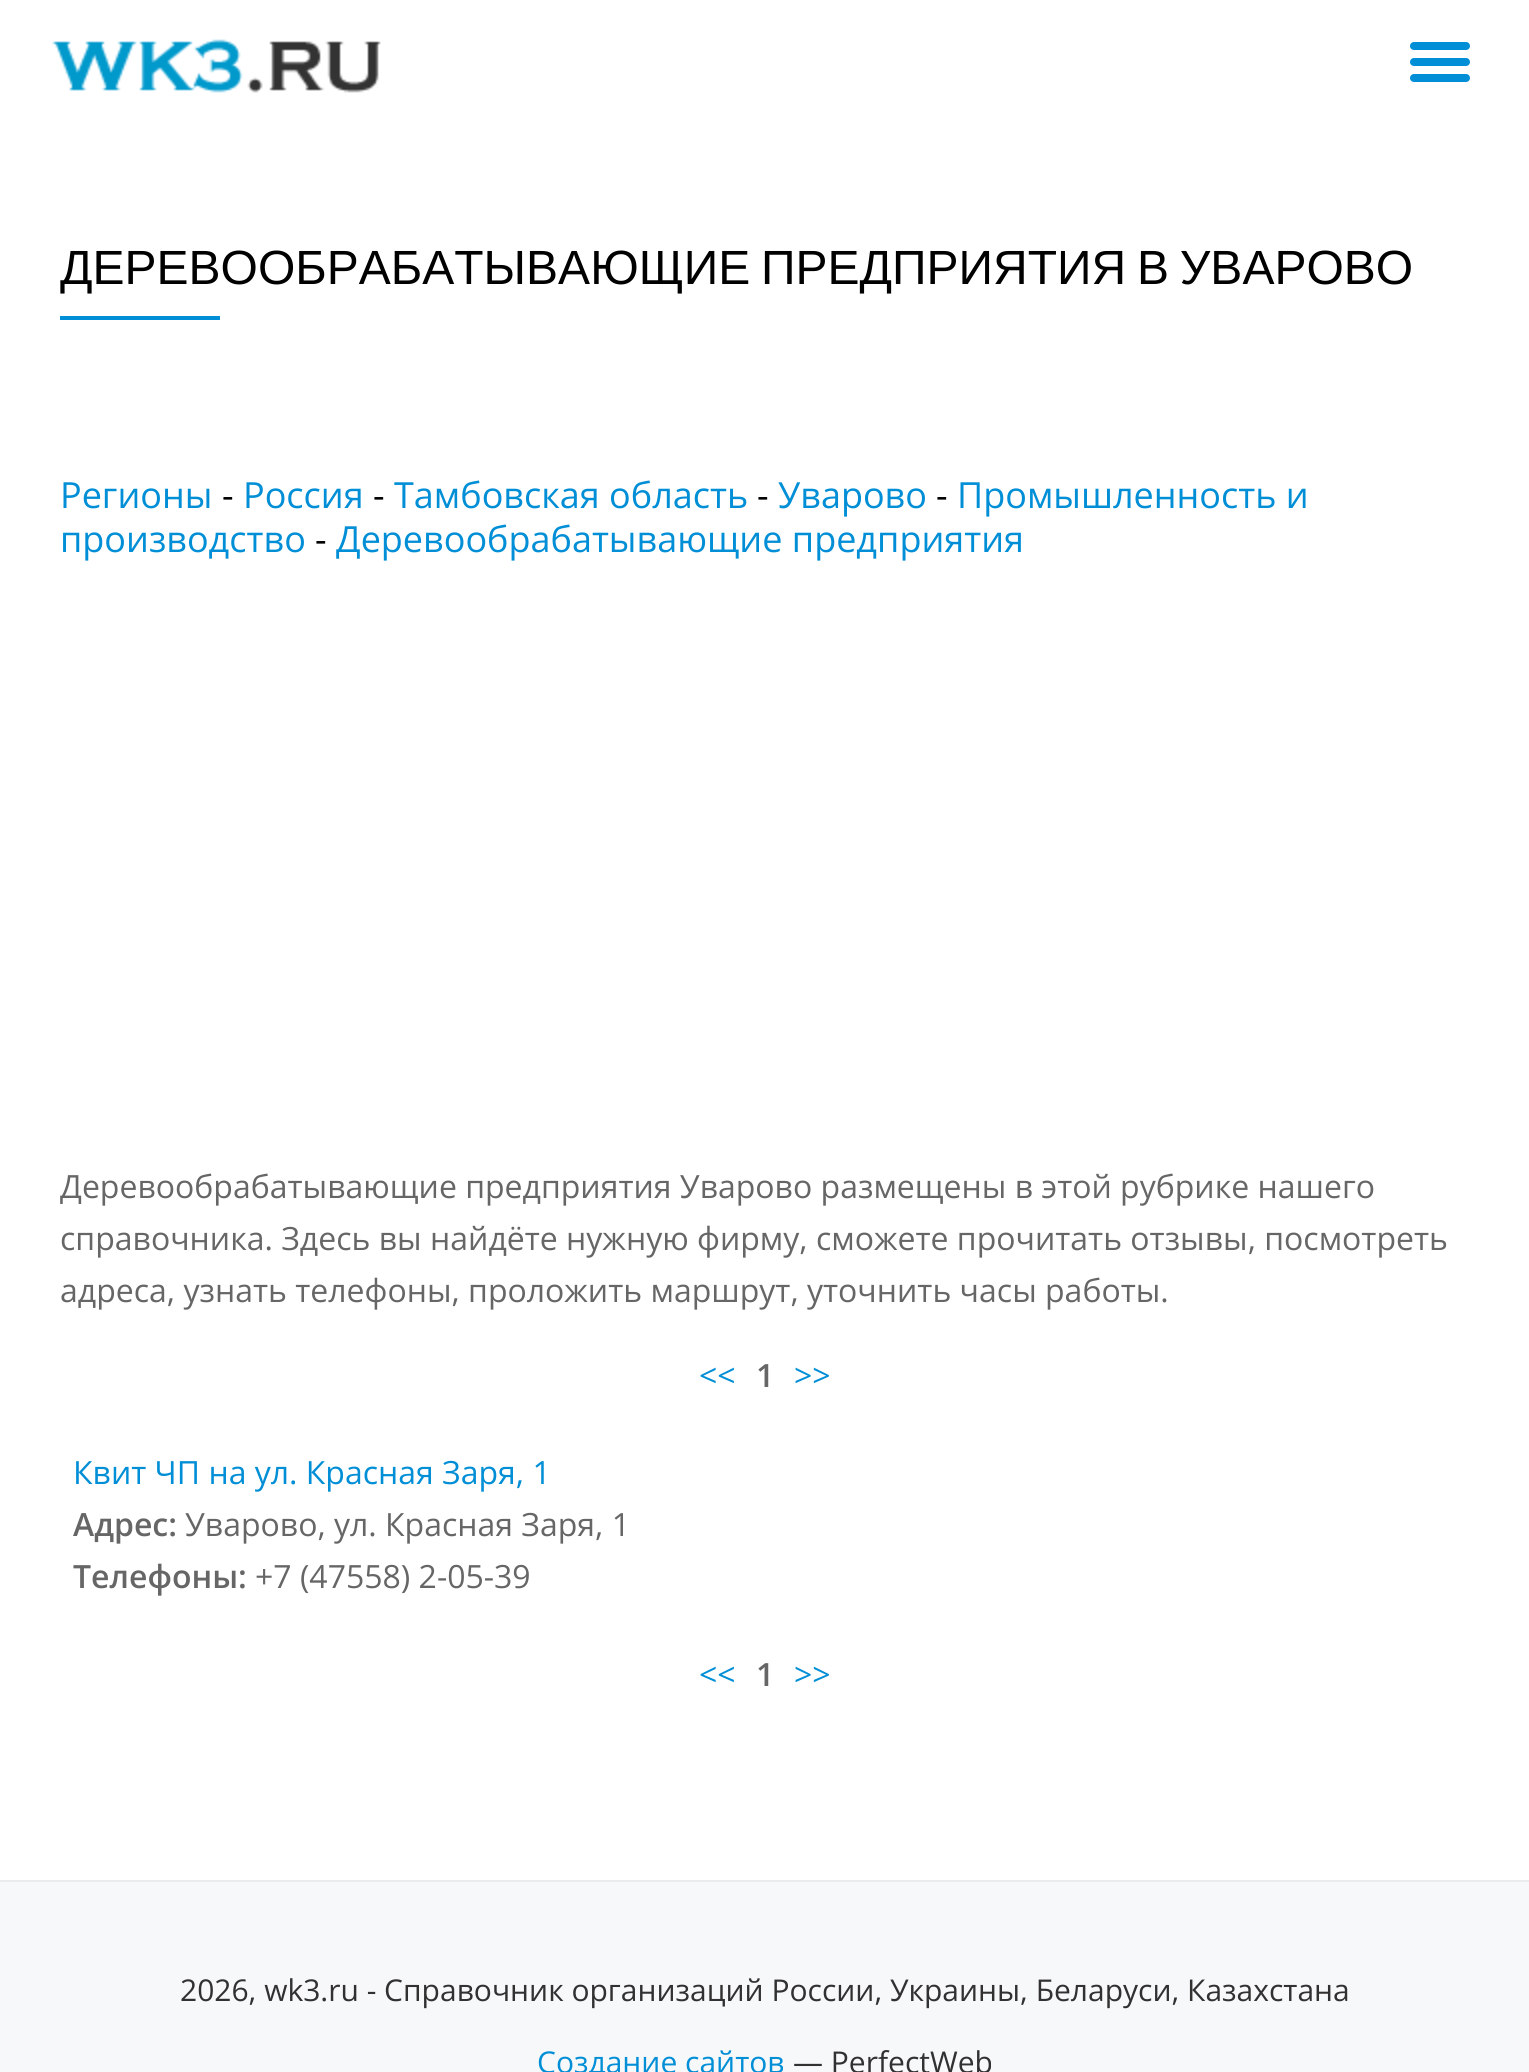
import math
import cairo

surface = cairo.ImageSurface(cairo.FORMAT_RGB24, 1529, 2072)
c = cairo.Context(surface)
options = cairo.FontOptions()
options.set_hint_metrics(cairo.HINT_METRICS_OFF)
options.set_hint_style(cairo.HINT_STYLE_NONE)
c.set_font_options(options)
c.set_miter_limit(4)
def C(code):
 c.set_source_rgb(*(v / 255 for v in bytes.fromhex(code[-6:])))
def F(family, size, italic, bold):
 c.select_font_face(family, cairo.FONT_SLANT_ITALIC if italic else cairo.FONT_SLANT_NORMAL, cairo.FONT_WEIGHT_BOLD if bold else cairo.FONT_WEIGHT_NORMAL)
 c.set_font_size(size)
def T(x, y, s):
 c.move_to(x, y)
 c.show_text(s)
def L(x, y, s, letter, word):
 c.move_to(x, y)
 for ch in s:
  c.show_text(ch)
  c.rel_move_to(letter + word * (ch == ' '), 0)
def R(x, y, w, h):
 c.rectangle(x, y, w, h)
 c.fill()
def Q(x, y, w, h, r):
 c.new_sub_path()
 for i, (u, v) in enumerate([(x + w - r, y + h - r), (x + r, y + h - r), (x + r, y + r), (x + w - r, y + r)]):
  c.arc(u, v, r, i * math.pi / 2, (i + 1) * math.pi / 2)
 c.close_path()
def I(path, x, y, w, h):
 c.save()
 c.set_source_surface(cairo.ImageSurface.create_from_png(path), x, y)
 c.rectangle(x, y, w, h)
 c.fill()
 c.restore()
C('ffffff')
c.paint()
I('1.png',51,39,330,54)
C('008ed6')
Q(1410,42,60,8,4)
c.fill()
Q(1410,58,60,8,4)
c.fill()
Q(1410,74,60,8,4)
c.fill()
F('Liberation Sans',48,0,0)
C('000000')
L(60,284,'ДЕРЕВООБРАБАТЫВАЮЩИЕ ПРЕДПРИЯТИЯ В УВАРОВО',0,-2.5)
C('008ed6')
R(60,316,160,4)
F('Open Sans',36,0,0)
T(60,508,'Регионы')
C('000000')
T(222,508,'-')
C('008ed6')
T(243,508,'Россия')
C('000000')
T(373,508,'-')
C('008ed6')
T(394,508,'Тамбовская область')
C('000000')
T(757,508,'-')
C('008ed6')
T(778,508,'Уварово')
C('000000')
T(936,508,'-')
C('008ed6')
T(957,508,'Промышленность и')
T(60,552,'производство')
C('000000')
T(315,552,'-')
C('008ed6')
T(336,552,'Деревообрабатывающие предприятия')
F('Open Sans',32,0,0)
C('666666')
T(60,1198,'Деревообрабатывающие предприятия Уварово размещены в этой рубрике нашего')
T(60,1250,'справочника. Здесь вы найдёте нужную фирму, сможете прочитать отзывы, посмотреть')
T(60,1302,'адреса, узнать телефоны, проложить маршрут, уточнить часы работы.')
C('008ed6')
T(699,1387,'<<')
F('Open Sans SemiBold',32,0,0)
C('666666')
T(756,1387,'1')
F('Open Sans',32,0,0)
C('008ed6')
T(794,1387,'>>')
T(73,1484,'Квит ЧП на ул. Красная Заря, 1')
F('Open Sans SemiBold',32,0,0)
C('666666')
T(73,1536,'Адрес:')
F('Open Sans',32,0,0)
T(185,1536,'Уварово, ул. Красная Заря, 1')
F('Open Sans SemiBold',32,0,0)
T(73,1588,'Телефоны:')
F('Open Sans',32,0,0)
T(255,1588,'+7 (47558) 2-05-39')
C('008ed6')
T(699,1686,'<<')
F('Open Sans SemiBold',32,0,0)
C('666666')
T(756,1686,'1')
F('Open Sans',32,0,0)
C('008ed6')
T(794,1686,'>>')
C('f7f8fa')
R(0,1882,1529,190)
C('eaebec')
R(0,1880,1529,2)
F('Open Sans',30,0,0)
C('313131')
T(180,2001,'2026, wk3.ru - Справочник организаций России, Украины, Беларуси, Казахстана')
C('008ed6')
T(537,2073,'Создание сайтов')
C('313131')
T(793,2073,'— PerfectWeb')
surface.write_to_png('o.png')
